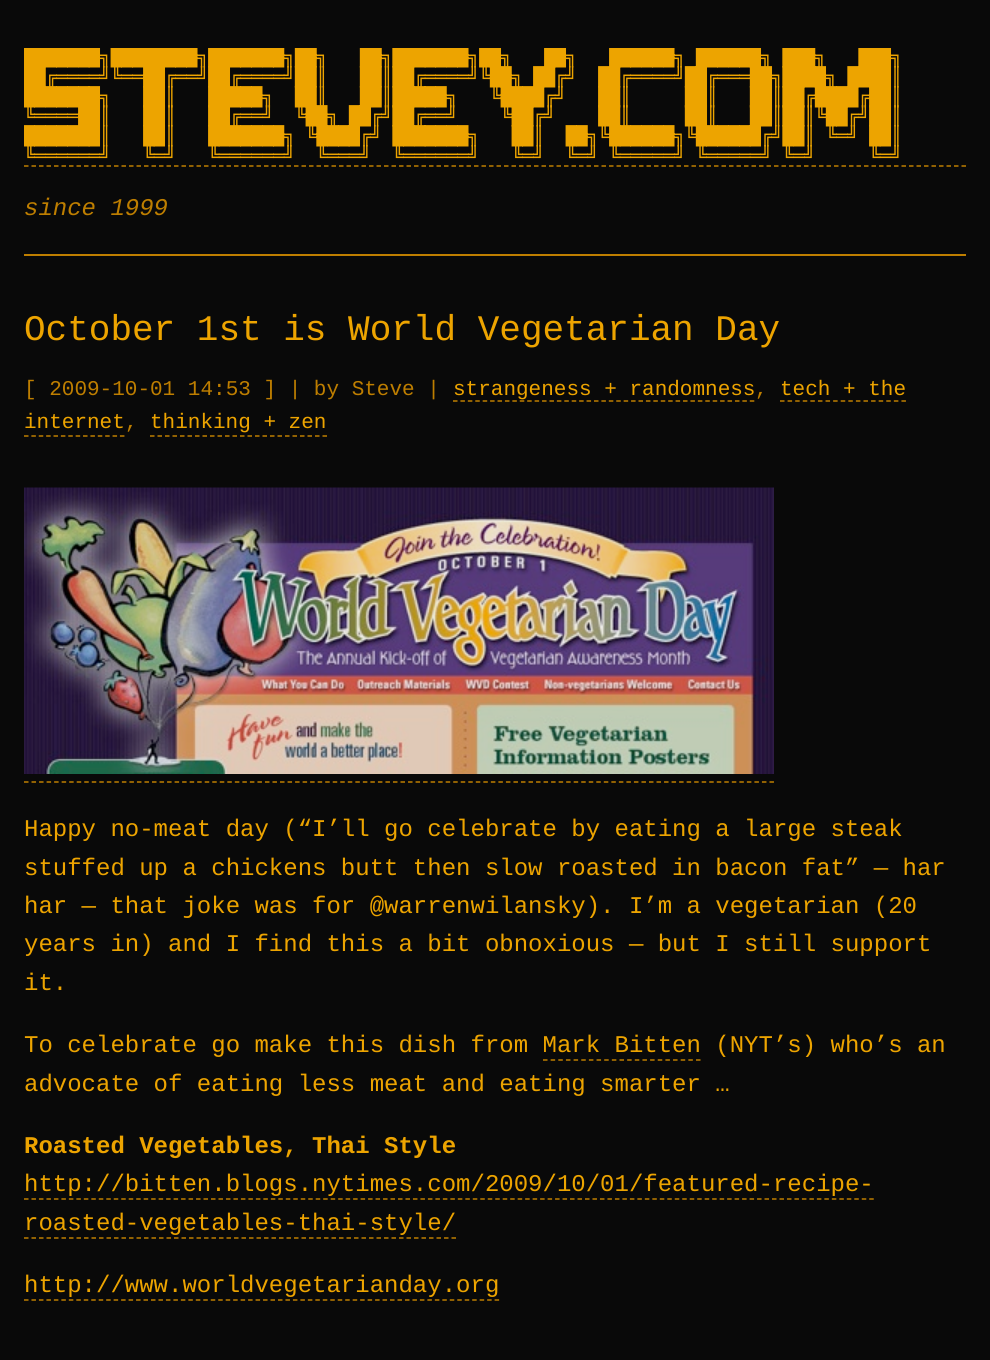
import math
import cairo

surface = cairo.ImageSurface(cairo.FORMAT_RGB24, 990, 1360)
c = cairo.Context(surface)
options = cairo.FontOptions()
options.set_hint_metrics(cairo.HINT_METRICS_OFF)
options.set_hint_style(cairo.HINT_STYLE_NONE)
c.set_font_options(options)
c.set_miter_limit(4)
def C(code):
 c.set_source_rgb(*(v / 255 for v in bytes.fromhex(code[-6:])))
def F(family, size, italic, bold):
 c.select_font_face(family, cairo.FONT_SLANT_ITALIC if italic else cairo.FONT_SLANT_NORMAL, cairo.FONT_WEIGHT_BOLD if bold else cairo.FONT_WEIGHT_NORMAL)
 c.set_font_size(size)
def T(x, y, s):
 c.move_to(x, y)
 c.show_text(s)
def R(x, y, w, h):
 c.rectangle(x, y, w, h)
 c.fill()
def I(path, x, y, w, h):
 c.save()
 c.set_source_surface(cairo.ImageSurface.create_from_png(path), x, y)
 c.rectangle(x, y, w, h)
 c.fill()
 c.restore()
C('090909')
c.paint()
C('be7e00')
R(24,254,942,2)
c.new_path()
c.move_to(24,166)
c.line_to(966,166)
c.set_line_width(1.5)
c.set_dash([4.5,3])
c.stroke()
c.save()
c.rectangle(24,48,942,119)
c.clip()
F('DejaVu Sans Mono',18,0,0)
C('eda400')
T(24,63,'███████╗████████╗███████╗██╗   ██╗███████╗██╗   ██╗   ██████╗ ██████╗ ███╗   ███╗')
T(24,83,'██╔════╝╚══██╔══╝██╔════╝██║   ██║██╔════╝╚██╗ ██╔╝  ██╔════╝██╔═══██╗████╗ ████║')
T(24,103,'███████╗   ██║   █████╗  ██║   ██║█████╗   ╚████╔╝   ██║     ██║   ██║██╔████╔██║')
c.restore()
F('DejaVu Sans Mono',18,0,0)
C('eda400')
T(24,122,'╚════██║   ██║   ██╔══╝  ╚██╗ ██╔╝██╔══╝    ╚██╔╝    ██║     ██║   ██║██║╚██╔╝██║')
c.save()
c.rectangle(24,48,942,119)
c.clip()
T(24,142,'███████║   ██║   ███████╗ ╚████╔╝ ███████╗   ██║  ██╗╚██████╗╚██████╔╝██║ ╚═╝ ██║')
c.restore()
T(24,162,'╚══════╝   ╚═╝   ╚══════╝  ╚═══╝  ╚══════╝   ╚═╝  ╚═╝ ╚═════╝ ╚═════╝ ╚═╝     ╚═╝')
F('Liberation Mono',24,1,0)
C('be7e00')
T(24,215,'since 1999')
F('Liberation Mono',36,0,0)
C('eda400')
T(24,340,'October 1st is World Vegetarian Day')
F('Liberation Mono',21,0,0)
C('be7e00')
T(24,395,'[ 2009-10-01 14:53 ] | by Steve |')
C('eda400')
T(453,395,'strangeness + randomness')
C('be7e00')
T(755,395,',')
c.new_path()
c.move_to(453,401)
c.line_to(754.5,401)
c.set_dash([4.5,2.92])
c.stroke()
C('eda400')
T(780,395,'tech + the')
c.new_path()
c.move_to(780,401)
c.line_to(906,401)
C('be7e00')
c.set_dash([4.5,3.09])
c.stroke()
C('eda400')
T(24,428,'internet')
C('be7e00')
T(125,428,',')
c.new_path()
c.move_to(24,436)
c.line_to(124.5,436)
c.set_dash([4.5,2.88])
c.stroke()
C('eda400')
T(150,428,'thinking + zen')
c.new_path()
c.move_to(150,436)
c.line_to(327,436)
C('be7e00')
c.set_dash([4.5,3])
c.stroke()
I('1.png',24,487,750,287)
c.new_path()
c.move_to(24,782)
c.line_to(774,782)
c.set_dash([4.5,3.03])
c.stroke()
F('Liberation Mono',24,0,0)
C('eda400')
T(24,836,'Happy no-meat day (“I’ll go celebrate by eating a large steak')
T(24,875,'stuffed up a chickens butt then slow roasted in bacon fat” — har')
T(24,913,'har — that joke was for @warrenwilansky). I’m a vegetarian (20')
T(24,951,'years in) and I find this a bit obnoxious — but I still support')
T(24,990,'it.')
T(24,1052,'To celebrate go make this dish from Mark Bitten (NYT’s) who’s an')
c.new_path()
c.move_to(543,1060)
c.line_to(700.5,1060)
C('be7e00')
c.set_dash([4.5,3.15])
c.stroke()
C('eda400')
T(24,1091,'advocate of eating less meat and eating smarter …')
F('Liberation Mono',24,0,1)
T(24,1153,'Roasted Vegetables, Thai Style')
F('Liberation Mono',24,0,0)
T(24,1191,'http://bitten.blogs.nytimes.com/2009/10/01/featured-recipe-')
c.new_path()
c.move_to(24,1199)
c.line_to(874.5,1199)
C('be7e00')
c.set_dash([4.5,2.98])
c.stroke()
C('eda400')
T(24,1230,'roasted-vegetables-thai-style/')
c.new_path()
c.move_to(24,1238)
c.line_to(456,1238)
C('be7e00')
c.set_dash([4.5,3])
c.stroke()
C('eda400')
T(24,1292,'http://www.worldvegetarianday.org')
c.new_path()
c.move_to(24,1300)
c.line_to(499.5,1300)
C('be7e00')
c.set_dash([4.5,2.97])
c.stroke()
surface.write_to_png('o.png')
